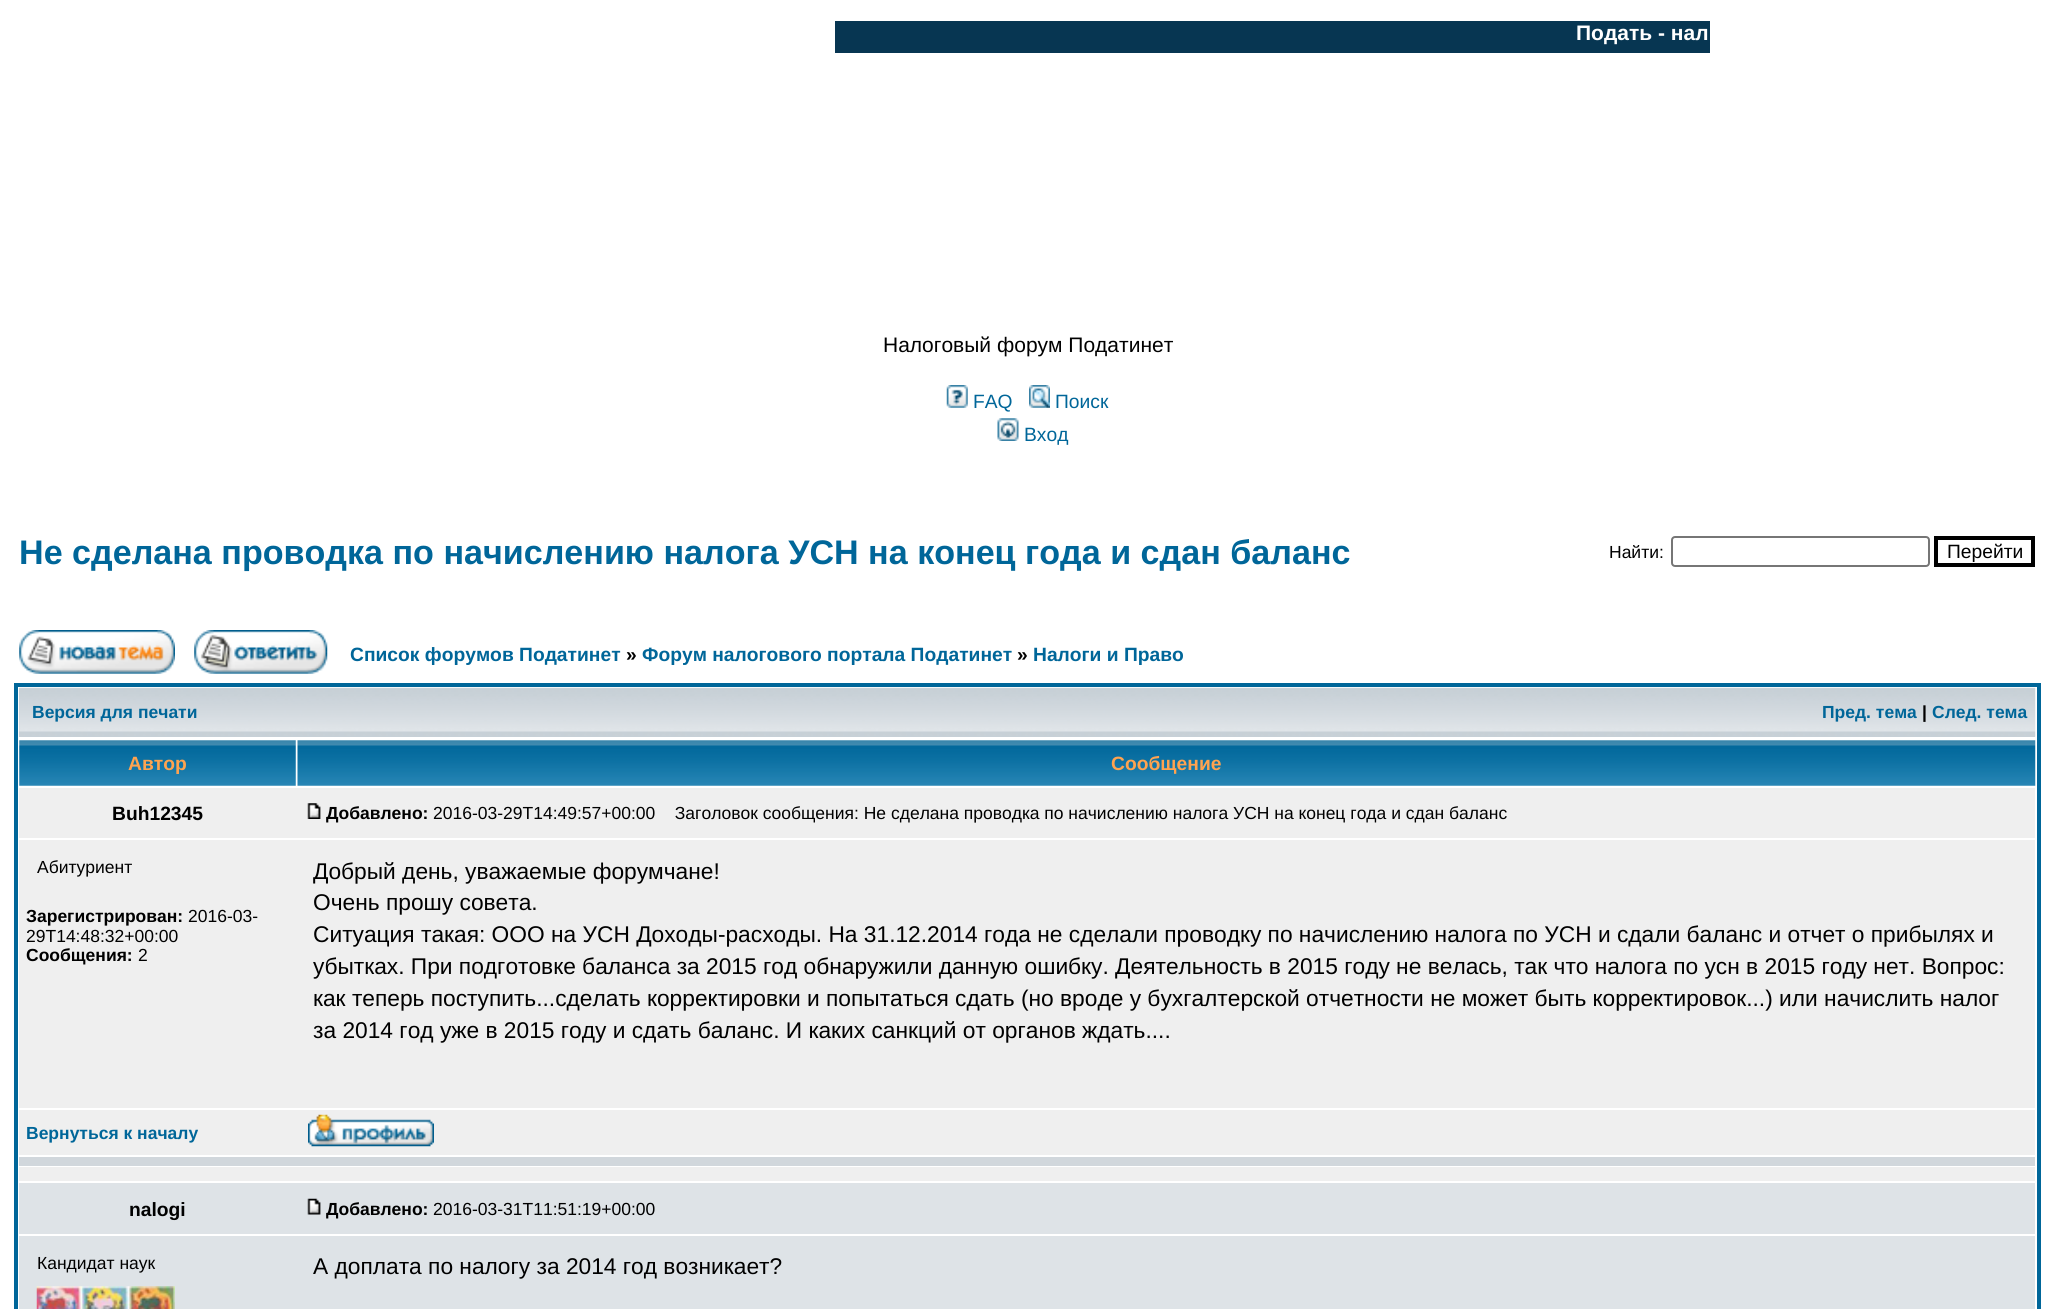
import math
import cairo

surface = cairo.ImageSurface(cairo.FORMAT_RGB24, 2053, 1309)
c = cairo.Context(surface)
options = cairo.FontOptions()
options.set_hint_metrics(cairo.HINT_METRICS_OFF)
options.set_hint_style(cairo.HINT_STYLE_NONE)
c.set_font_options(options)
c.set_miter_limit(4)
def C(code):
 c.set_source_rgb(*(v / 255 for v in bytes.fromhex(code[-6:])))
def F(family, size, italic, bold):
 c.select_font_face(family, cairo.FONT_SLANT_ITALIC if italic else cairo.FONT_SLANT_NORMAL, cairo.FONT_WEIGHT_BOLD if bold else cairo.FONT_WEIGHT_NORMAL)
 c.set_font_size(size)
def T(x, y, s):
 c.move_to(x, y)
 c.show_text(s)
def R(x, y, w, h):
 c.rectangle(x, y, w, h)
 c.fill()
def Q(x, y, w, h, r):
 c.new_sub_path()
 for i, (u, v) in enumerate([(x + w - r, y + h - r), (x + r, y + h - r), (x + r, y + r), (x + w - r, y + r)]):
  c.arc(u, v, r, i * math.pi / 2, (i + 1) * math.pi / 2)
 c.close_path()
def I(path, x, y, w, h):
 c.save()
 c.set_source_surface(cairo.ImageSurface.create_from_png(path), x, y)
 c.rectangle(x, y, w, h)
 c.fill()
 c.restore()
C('ffffff')
c.paint()
C('073652')
R(835,21,875,32)
F('Liberation Sans',21,0,1)
C('ffffff')
T(1576,40,'Подать - нал')
F('Liberation Sans',21,0,0)
C('000000')
T(883,352,'Налоговый форум Податинет')
I('1.png',946,385,22,23)
F('Liberation Sans',19.25,0,0)
C('006699')
T(973,408,'FAQ')
I('2.png',1029,385,21,23)
T(1055,408,'Поиск')
I('3.png',997,418,22,23)
T(1024,441,'Вход')
F('Liberation Sans',34.1,0,1)
T(19,564,'Не сделана проводка по начислению налога УСН на конец года и сдан баланс')
F('Liberation Sans',17.5,0,0)
C('000000')
T(1609,558,'Найти:')
Q(1672,537,257,29,3)
C('767676')
c.stroke()
c.rectangle(1936,538,97,27)
C('000000')
c.set_line_width(4)
c.stroke()
F('Liberation Sans',19.25,0,0)
T(1947,558,'Перейти')
I('4.png',19,630,156,44)
I('5.png',194,630,134,44)
F('Liberation Sans',19.25,0,1)
C('006699')
T(350,661,'Список форумов Податинет')
C('000000')
T(626,661,'»')
C('006699')
T(642,661,'Форум налогового портала Податинет')
C('000000')
T(1017,661,'»')
C('006699')
T(1033,661,'Налоги и Право')
R(14,683,2027,4)
R(2037,683,4,626)
R(14,683,4,626)
C('c7d0d7')
R(19,688,2016,49)
I('6.png',19,687,2017,50)
F('Liberation Sans',17.5,0,1)
C('006699')
T(32,718,'Версия для печати')
T(1822,718,'Пред. тема')
C('000000')
T(1922,718,'|')
C('006699')
T(1932,718,'След. тема')
I('7.png',19,740,277,46)
F('Liberation Sans',19.25,0,1)
C('ffa34f')
T(128,770,'Автор')
I('8.png',297,740,1739,46)
T(1111,770,'Сообщение')
C('efefef')
R(19,788,2016,50)
C('000000')
T(112,820,'Buh12345')
I('9.png',307,803,14,16)
F('Liberation Sans',17.5,0,1)
T(326,819,'Добавлено:')
F('Liberation Sans',17.5,0,0)
T(433,819,'2016-03-29T14:49:57+00:00    Заголовок сообщения: Не сделана проводка по начислению налога УСН на конец года и сдан баланс')
C('efefef')
R(19,840,2016,268)
C('000000')
T(37,873,'Абитуриент')
F('Liberation Sans',17.5,0,1)
T(26,922,'Зарегистрирован:')
F('Liberation Sans',17.5,0,0)
T(188,922,'2016-03-')
T(26,942,'29T14:48:32+00:00')
F('Liberation Sans',17.5,0,1)
T(26,961,'Сообщения:')
F('Liberation Sans',17.5,0,0)
T(138,961,'2')
F('Liberation Sans',22.75,0,0)
T(313,879,'Добрый день, уважаемые форумчане!')
T(313,910,'Очень прошу совета.')
T(313,942,'Ситуация такая: ООО на УСН Доходы-расходы. На 31.12.2014 года не сделали проводку по начислению налога по УСН и сдали баланс и отчет о прибылях и')
T(313,974,'убытках. При подготовке баланса за 2015 год обнаружили данную ошибку. Деятельность в 2015 году не велась, так что налога по усн в 2015 году нет. Вопрос:')
T(313,1006,'как теперь поступить...сделать корректировки и попытаться сдать (но вроде у бухгалтерской отчетности не может быть корректировок...) или начислить налог')
T(313,1038,'за 2014 год уже в 2015 году и сдать баланс. И каких санкций от органов ждать....')
C('efefef')
R(19,1110,2016,45)
F('Liberation Sans',17.5,0,1)
C('006699')
T(26,1139,'Вернуться к началу')
I('10.png',308,1114,126,33)
C('d1d7dc')
R(19,1157,2016,9)
C('efefef')
R(19,1167,2016,14)
C('dee3e7')
R(19,1183,2016,51)
F('Liberation Sans',19.25,0,1)
C('000000')
T(129,1216,'nalogi')
I('11.png',307,1198,14,17)
F('Liberation Sans',17.5,0,1)
T(326,1215,'Добавлено:')
F('Liberation Sans',17.5,0,0)
T(433,1215,'2016-03-31T11:51:19+00:00')
C('dee3e7')
R(19,1236,2016,73)
C('000000')
T(37,1269,'Кандидат наук')
I('12.png',36,1286,139,23)
F('Liberation Sans',22.75,0,0)
T(313,1274,'А доплата по налогу за 2014 год возникает?')
surface.write_to_png('o.png')
